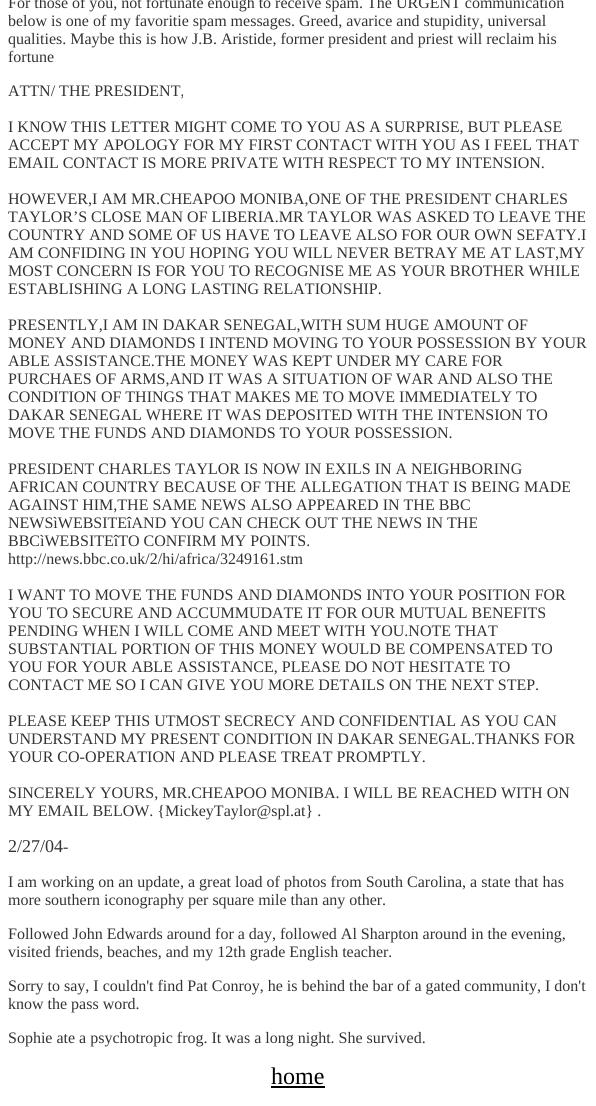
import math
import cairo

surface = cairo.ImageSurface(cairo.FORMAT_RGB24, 596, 1106)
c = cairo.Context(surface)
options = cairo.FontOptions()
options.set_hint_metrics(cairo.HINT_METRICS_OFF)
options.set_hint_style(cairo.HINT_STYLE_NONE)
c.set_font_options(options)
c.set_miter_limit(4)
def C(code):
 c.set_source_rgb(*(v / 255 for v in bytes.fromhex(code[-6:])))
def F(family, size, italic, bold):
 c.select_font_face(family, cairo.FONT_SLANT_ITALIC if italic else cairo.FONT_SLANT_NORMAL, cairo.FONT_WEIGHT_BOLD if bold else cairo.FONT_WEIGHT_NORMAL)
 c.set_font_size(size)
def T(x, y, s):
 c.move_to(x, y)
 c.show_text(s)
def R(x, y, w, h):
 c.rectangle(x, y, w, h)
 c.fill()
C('ffffff')
c.paint()
F('Liberation Serif',16,0,0)
C('333333')
T(8,8,'For those of you, not fortunate enough to receive spam. The URGENT communication')
T(8,26,'below is one of my favoritie spam messages. Greed, avarice and stupidity, universal')
T(8,44,'qualities. Maybe this is how J.B. Aristide, former president and priest will reclaim his')
T(8,62,'fortune')
T(8,96,'ATTN/ THE PRESIDENT,')
T(8,132,'I KNOW THIS LETTER MIGHT COME TO YOU AS A SURPRISE, BUT PLEASE')
T(8,150,'ACCEPT MY APOLOGY FOR MY FIRST CONTACT WITH YOU AS I FEEL THAT')
T(8,168,'EMAIL CONTACT IS MORE PRIVATE WITH RESPECT TO MY INTENSION.')
T(8,204,'HOWEVER,I AM MR.CHEAPOO MONIBA,ONE OF THE PRESIDENT CHARLES')
T(8,222,'TAYLOR’S CLOSE MAN OF LIBERIA.MR TAYLOR WAS ASKED TO LEAVE THE')
T(8,240,'COUNTRY AND SOME OF US HAVE TO LEAVE ALSO FOR OUR OWN SEFATY.I')
T(8,258,'AM CONFIDING IN YOU HOPING YOU WILL NEVER BETRAY ME AT LAST,MY')
T(8,276,'MOST CONCERN IS FOR YOU TO RECOGNISE ME AS YOUR BROTHER WHILE')
T(8,294,'ESTABLISHING A LONG LASTING RELATIONSHIP.')
T(8,330,'PRESENTLY,I AM IN DAKAR SENEGAL,WITH SUM HUGE AMOUNT OF')
T(8,348,'MONEY AND DIAMONDS I INTEND MOVING TO YOUR POSSESSION BY YOUR')
T(8,366,'ABLE ASSISTANCE.THE MONEY WAS KEPT UNDER MY CARE FOR')
T(8,384,'PURCHAES OF ARMS,AND IT WAS A SITUATION OF WAR AND ALSO THE')
T(8,402,'CONDITION OF THINGS THAT MAKES ME TO MOVE IMMEDIATELY TO')
T(8,420,'DAKAR SENEGAL WHERE IT WAS DEPOSITED WITH THE INTENSION TO')
T(8,438,'MOVE THE FUNDS AND DIAMONDS TO YOUR POSSESSION.')
T(8,474,'PRESIDENT CHARLES TAYLOR IS NOW IN EXILS IN A NEIGHBORING')
T(8,492,'AFRICAN COUNTRY BECAUSE OF THE ALLEGATION THAT IS BEING MADE')
T(8,510,'AGAINST HIM,THE SAME NEWS ALSO APPEARED IN THE BBC')
T(8,528,'NEWSìWEBSITEîAND YOU CAN CHECK OUT THE NEWS IN THE')
T(8,546,'BBCìWEBSITEîTO CONFIRM MY POINTS.')
T(8,564,'http://news.bbc.co.uk/2/hi/africa/3249161.stm')
T(8,600,'I WANT TO MOVE THE FUNDS AND DIAMONDS INTO YOUR POSITION FOR')
T(8,618,'YOU TO SECURE AND ACCUMMUDATE IT FOR OUR MUTUAL BENEFITS')
T(8,636,'PENDING WHEN I WILL COME AND MEET WITH YOU.NOTE THAT')
T(8,654,'SUBSTANTIAL PORTION OF THIS MONEY WOULD BE COMPENSATED TO')
T(8,672,'YOU FOR YOUR ABLE ASSISTANCE, PLEASE DO NOT HESITATE TO')
T(8,690,'CONTACT ME SO I CAN GIVE YOU MORE DETAILS ON THE NEXT STEP.')
T(8,726,'PLEASE KEEP THIS UTMOST SECRECY AND CONFIDENTIAL AS YOU CAN')
T(8,744,'UNDERSTAND MY PRESENT CONDITION IN DAKAR SENEGAL.THANKS FOR')
T(8,762,'YOUR CO-OPERATION AND PLEASE TREAT PROMPTLY.')
T(8,798,'SINCERELY YOURS, MR.CHEAPOO MONIBA. I WILL BE REACHED WITH ON')
T(8,816,'MY EMAIL BELOW. {MickeyTaylor@spl.at} .')
F('Liberation Serif',18,0,0)
T(8,852,'2/27/04')
F('Liberation Serif',16,0,0)
T(63,852,'-')
T(8,887,'I am working on an update, a great load of photos from South Carolina, a state that has')
T(8,905,'more southern iconography per square mile than any other.')
T(8,939,'Followed John Edwards around for a day, followed Al Sharpton around in the evening,')
T(8,957,'visited friends, beaches, and my 12th grade English teacher.')
T(8,991,'Sorry to say, I couldn\'t find Pat Conroy, he is behind the bar of a gated community, I don\'t')
T(8,1009,'know the pass word.')
T(8,1043,'Sophie ate a psychotropic frog. It was a long night. She survived.')
F('Liberation Serif',24,0,0)
C('000000')
T(271,1084,'home')
R(271,1086,54,2)
surface.write_to_png('o.png')
